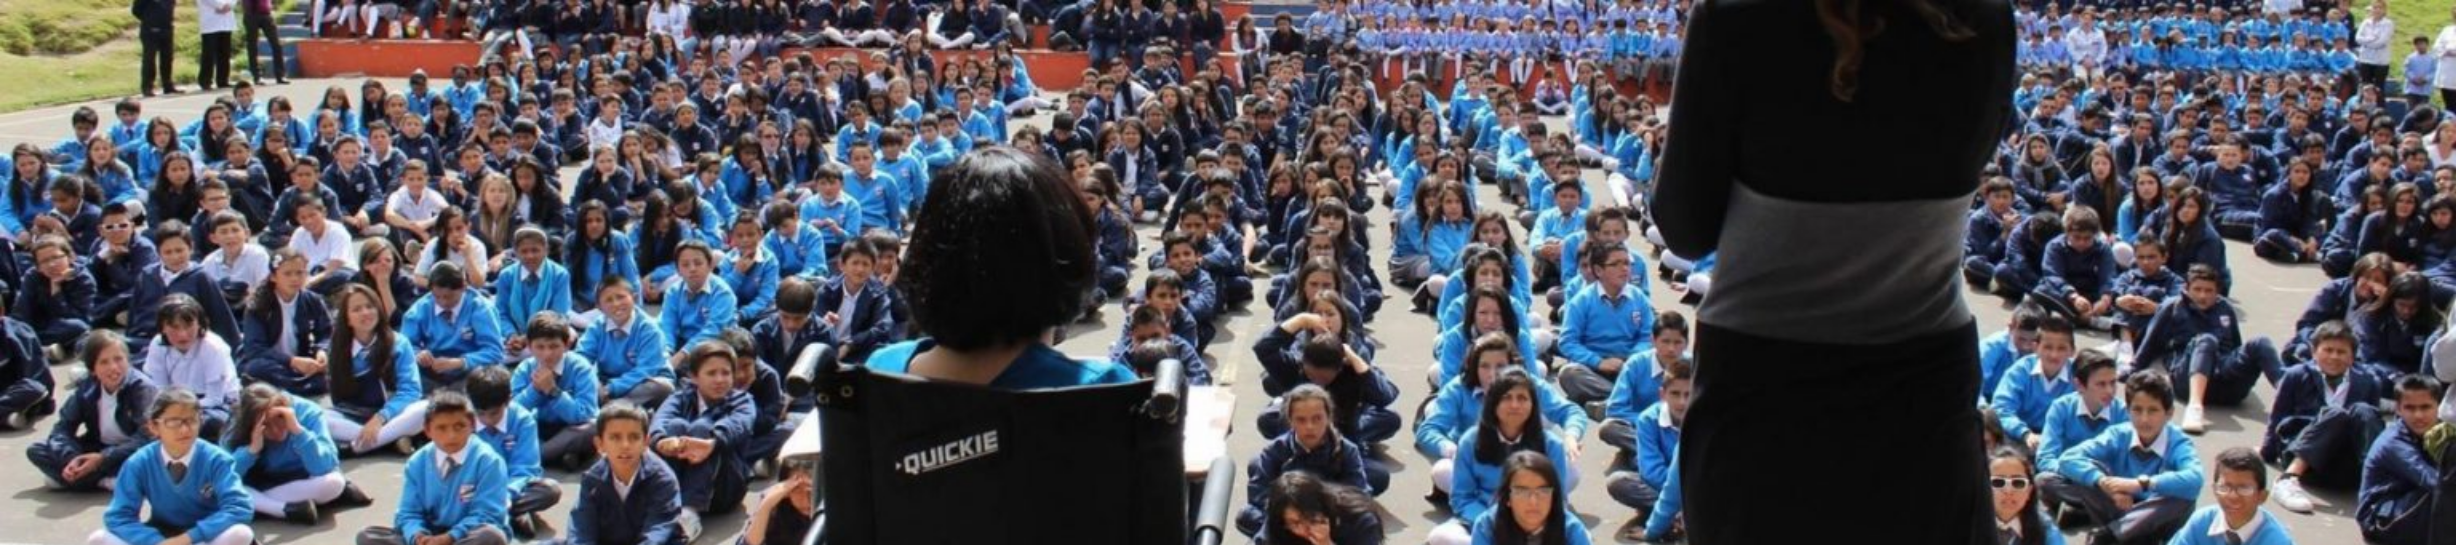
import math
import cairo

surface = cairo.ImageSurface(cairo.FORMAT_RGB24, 2456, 545)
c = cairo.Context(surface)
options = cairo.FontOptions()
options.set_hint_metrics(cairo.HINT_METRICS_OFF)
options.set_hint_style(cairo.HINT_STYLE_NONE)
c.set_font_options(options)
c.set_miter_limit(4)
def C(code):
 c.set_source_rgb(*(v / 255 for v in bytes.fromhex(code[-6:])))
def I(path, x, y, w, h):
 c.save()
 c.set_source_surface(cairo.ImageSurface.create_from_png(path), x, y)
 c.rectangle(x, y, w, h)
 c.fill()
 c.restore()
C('ffffff')
c.paint()
I('1.png',0,0,2456,545)
surface.write_to_png('o.png')
